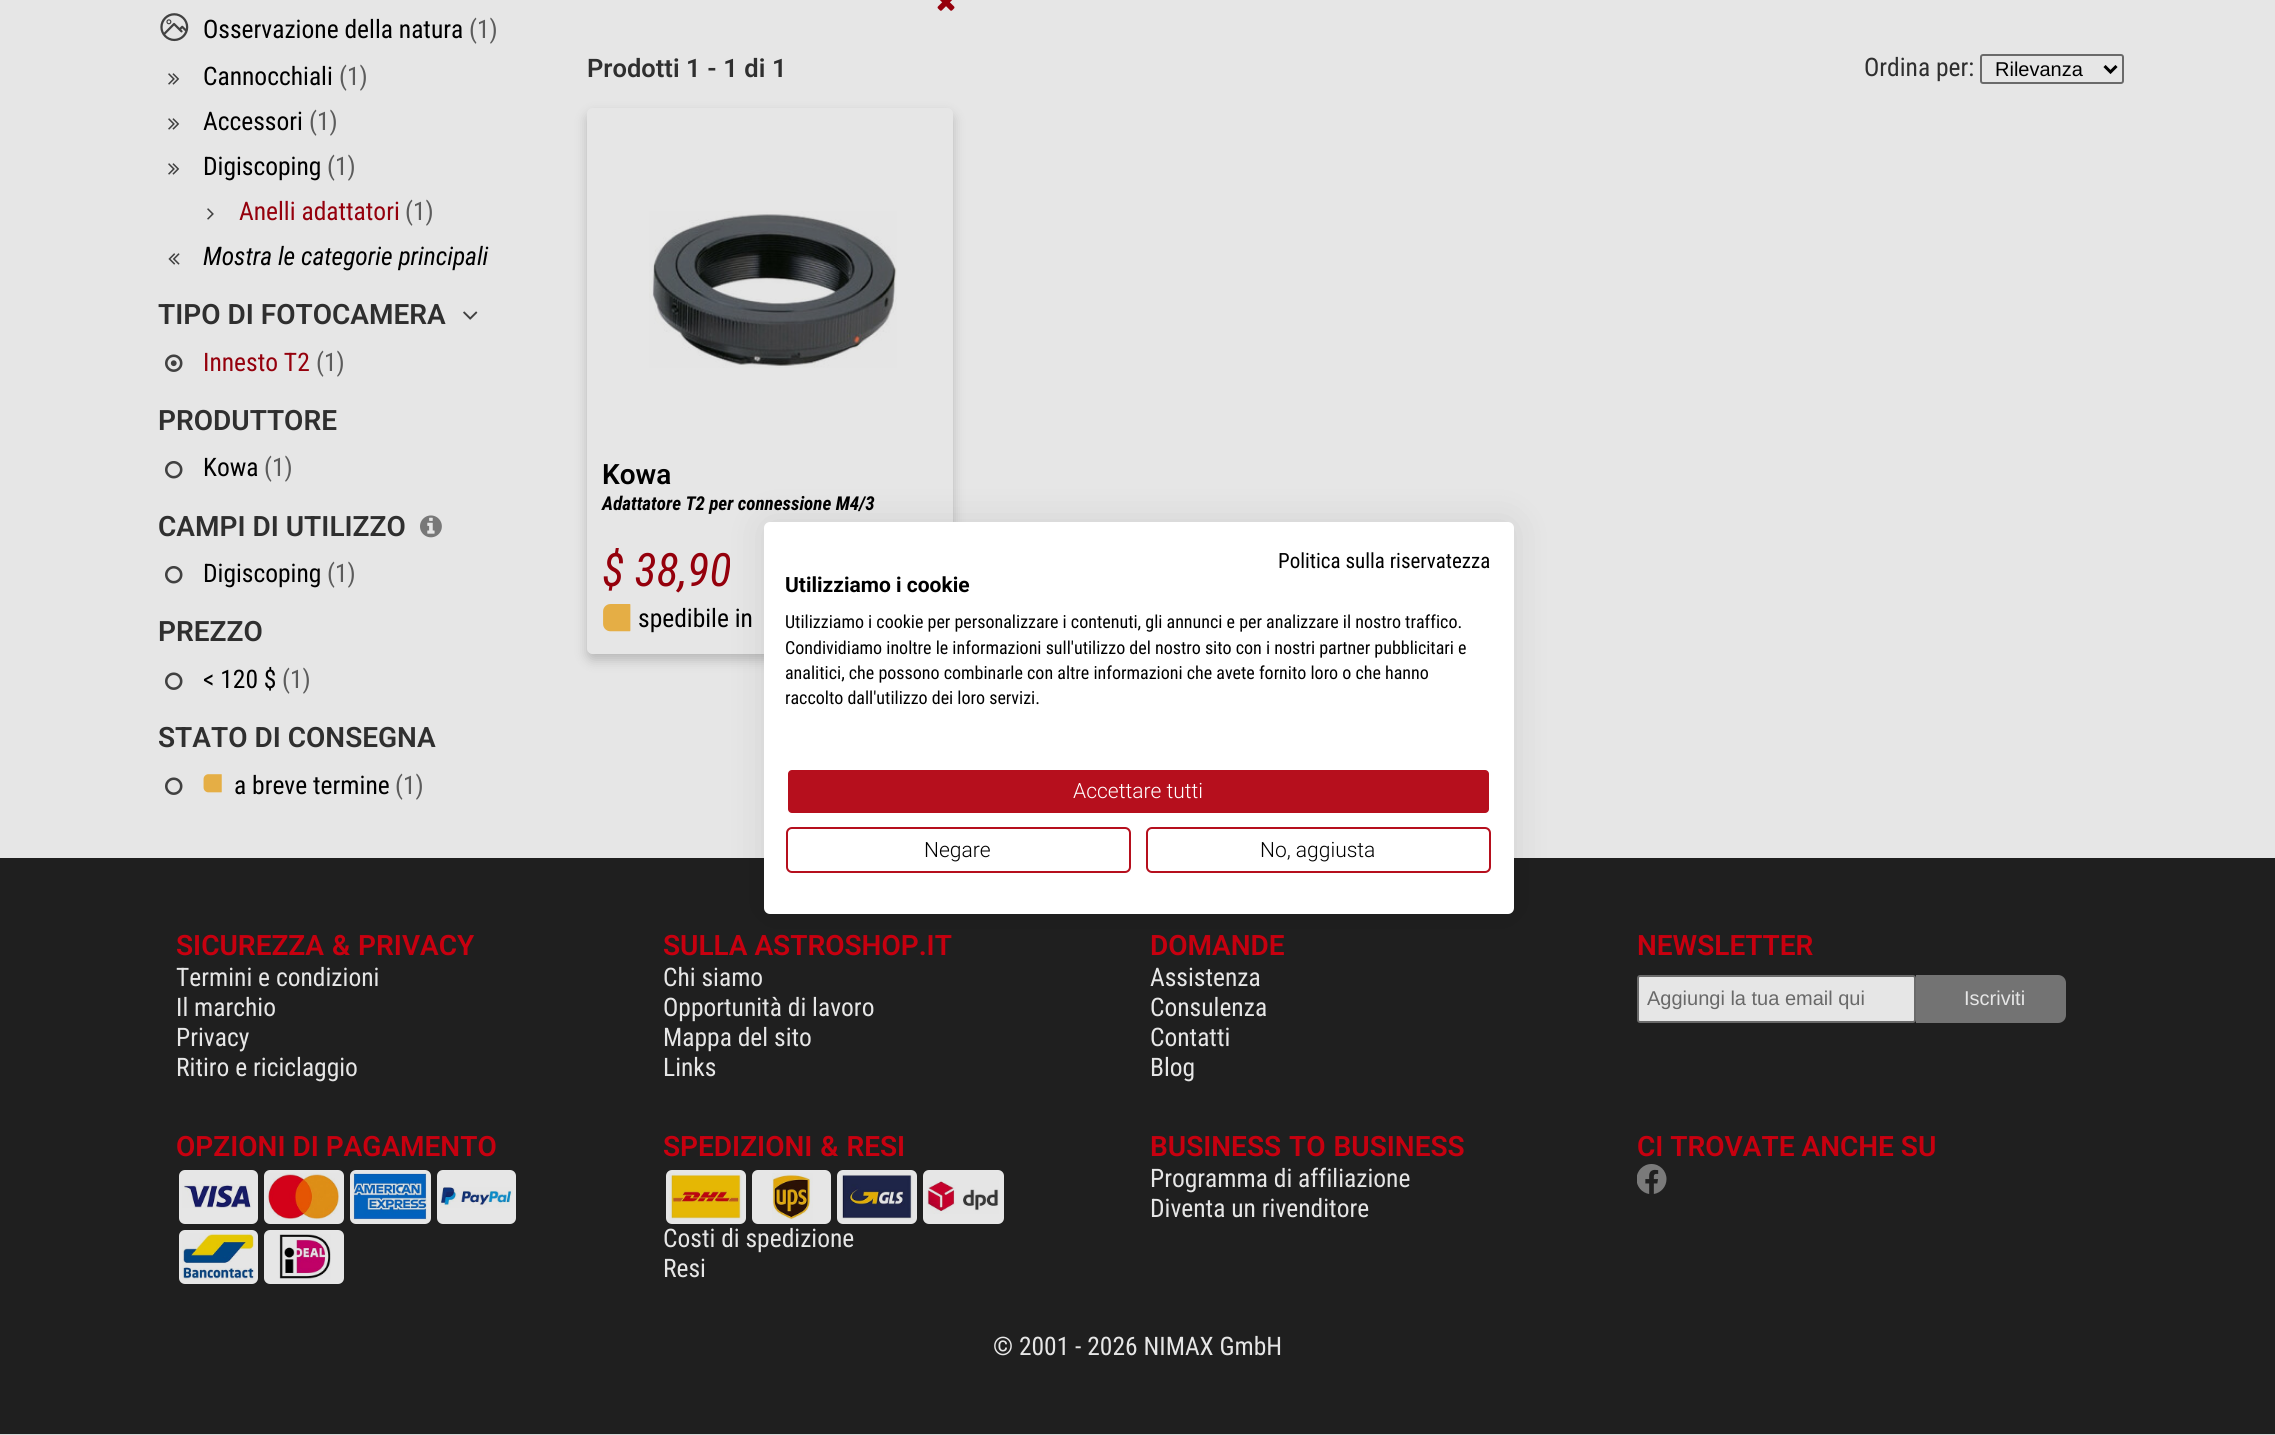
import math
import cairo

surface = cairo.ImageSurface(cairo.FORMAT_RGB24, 2275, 1435)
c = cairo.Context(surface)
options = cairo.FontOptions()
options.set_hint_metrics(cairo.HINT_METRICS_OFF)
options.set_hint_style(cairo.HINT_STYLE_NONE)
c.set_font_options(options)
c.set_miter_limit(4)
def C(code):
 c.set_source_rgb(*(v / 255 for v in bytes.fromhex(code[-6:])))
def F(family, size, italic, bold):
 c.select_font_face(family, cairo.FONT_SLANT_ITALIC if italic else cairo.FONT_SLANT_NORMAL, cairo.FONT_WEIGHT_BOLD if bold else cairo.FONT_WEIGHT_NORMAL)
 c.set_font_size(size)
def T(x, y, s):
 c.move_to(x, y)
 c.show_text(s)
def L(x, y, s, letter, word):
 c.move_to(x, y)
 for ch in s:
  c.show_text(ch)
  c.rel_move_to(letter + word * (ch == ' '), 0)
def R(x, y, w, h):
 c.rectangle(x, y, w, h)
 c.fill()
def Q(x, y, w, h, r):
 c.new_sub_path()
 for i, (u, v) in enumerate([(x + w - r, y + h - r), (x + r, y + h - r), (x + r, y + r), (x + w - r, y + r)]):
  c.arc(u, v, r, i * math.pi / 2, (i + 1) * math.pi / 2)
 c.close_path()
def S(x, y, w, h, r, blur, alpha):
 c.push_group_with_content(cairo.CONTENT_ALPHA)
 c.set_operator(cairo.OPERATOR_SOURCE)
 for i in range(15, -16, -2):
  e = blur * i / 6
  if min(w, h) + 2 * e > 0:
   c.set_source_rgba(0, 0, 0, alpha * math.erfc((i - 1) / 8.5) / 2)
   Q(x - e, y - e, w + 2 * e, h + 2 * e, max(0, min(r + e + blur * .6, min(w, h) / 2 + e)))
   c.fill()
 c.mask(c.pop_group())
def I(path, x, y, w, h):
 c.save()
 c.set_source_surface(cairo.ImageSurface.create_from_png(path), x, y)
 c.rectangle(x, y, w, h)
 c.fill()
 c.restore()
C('e6e6e6')
c.paint()
I('1.png',160,13,29,29)
F('Roboto Condensed',25.5,0,0)
C('000000')
T(203,38,'Osservazione della natura')
C('5c5c5c')
T(469,38,'(1)')
I('2.png',168,73,12,12)
C('000000')
T(203,85,'Cannocchiali')
C('5c5c5c')
T(339,85,'(1)')
I('2.png',168,118,12,12)
C('000000')
T(203,130,'Accessori')
C('5c5c5c')
T(309,130,'(1)')
I('2.png',168,163,12,12)
C('000000')
T(203,175,'Digiscoping')
C('5c5c5c')
T(327,175,'(1)')
I('3.png',207,208,7,12)
C('95000c')
T(239,220,'Anelli adattatori')
C('5c5c5c')
T(405,220,'(1)')
I('4.png',168,253,12,12)
F('Roboto Condensed',25.5,1,0)
C('000000')
T(203,265,'Mostra le categorie principali')
F('Roboto SemiBold',28,0,0)
C('2f2f2f')
T(158,324,'TIPO DI FOTOCAMERA')
I('5.png',463,311,15,9)
I('6.png',165,354,18,18)
F('Roboto Condensed',25.5,0,0)
C('95000c')
T(203,371,'Innesto T2')
C('5c5c5c')
T(316,371,'(1)')
F('Roboto SemiBold',28,0,0)
C('2f2f2f')
T(158,430,'PRODUTTORE')
I('7.png',165,461,18,18)
F('Roboto Condensed',25.5,0,0)
C('000000')
T(203,476,'Kowa')
C('5c5c5c')
T(264,476,'(1)')
F('Roboto SemiBold',28,0,0)
C('2f2f2f')
T(158,536,'CAMPI DI UTILIZZO')
I('8.png',420,515,22,23)
I('7.png',165,566,18,18)
F('Roboto Condensed',25.5,0,0)
C('000000')
T(203,582,'Digiscoping')
C('5c5c5c')
T(327,582,'(1)')
F('Roboto SemiBold',28,0,0)
C('2f2f2f')
T(158,641,'PREZZO')
I('9.png',165,672,18,18)
F('Roboto Condensed',25.5,0,0)
C('000000')
T(203,688,'< 120 $')
C('5c5c5c')
T(282,688,'(1)')
F('Roboto SemiBold',28,0,0)
C('2f2f2f')
T(158,747,'STATO DI CONSEGNA')
I('9.png',165,777,18,18)
I('10.png',203,774,19,19)
F('Roboto Condensed',25.5,0,0)
C('000000')
T(234,794,'a breve termine')
C('5c5c5c')
T(395,794,'(1)')
I('11.png',937,0,18,11)
F('Roboto SemiBold',25.5,0,0)
C('2f2f2f')
L(587,77,'Prodotti 1 - 1 di 1',0,.25)
F('Roboto Condensed',25.5,0,0)
T(1864,76,'Ordina per:')
Q(1981,55,142,28,2)
C('6a6a6a')
c.stroke()
c.new_path()
c.move_to(2104.5,66)
c.line_to(2110.5,72)
c.line_to(2116.5,66)
C('000000')
c.set_line_width(3)
c.stroke()
F('Liberation Sans',20,0,0)
T(1995,76,'Rilevanza')
c.save()
c.set_fill_rule(cairo.FILL_RULE_EVEN_ODD)
c.new_path()
c.move_to(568,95)
c.line_to(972,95)
c.line_to(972,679)
c.line_to(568,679)
c.close_path()
c.move_to(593,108)
c.line_to(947,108)
c.curve_to(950.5,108,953,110.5,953,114)
c.line_to(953,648)
c.curve_to(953,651.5,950.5,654,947,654)
c.line_to(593,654)
c.curve_to(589.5,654,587,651.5,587,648)
c.line_to(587,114)
c.curve_to(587,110.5,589.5,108,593,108)
c.close_path()
c.clip()
C('000000')
S(587,114,366,546,6,6,.2)
c.restore()
I('12.png',649,211,248,157)
F('Roboto SemiBold',28,0,0)
T(602,484,'Kowa')
F('Roboto Condensed',19.1,1,1)
T(602,510,'Adattatore T2 per connessione M4/3')
F('Roboto Condensed',46,1,0)
C('95000c')
T(602,586,'$ 38,90')
I('13.png',603,604,28,28)
F('Roboto Condensed',25.5,0,0)
C('000000')
T(638,627,'spedibile in')
C('1f1f1f')
R(0,858,2275,576)
C('d7d7d7')
R(0,1434,2275,1)
F('Roboto SemiBold',28,0,0)
C('c7000f')
L(176,955,'SICUREZZA & PRIVACY',0,1)
F('Roboto Condensed',25.5,0,0)
C('e6e6e6')
T(176,986,'Termini e condizioni')
T(176,1016,'Il marchio')
T(176,1046,'Privacy')
T(176,1076,'Ritiro e riciclaggio')
F('Roboto SemiBold',28,0,0)
C('c7000f')
T(663,955,'SULLA ASTROSHOP.IT')
F('Roboto Condensed',25.5,0,0)
C('e6e6e6')
T(663,986,'Chi siamo')
T(663,1016,'Opportunità di lavoro')
T(663,1046,'Mappa del sito')
T(663,1076,'Links')
F('Roboto SemiBold',28,0,0)
C('c7000f')
T(1150,955,'DOMANDE')
F('Roboto Condensed',25.5,0,0)
C('e6e6e6')
T(1150,986,'Assistenza')
T(1150,1016,'Consulenza')
T(1150,1046,'Contatti')
T(1150,1076,'Blog')
F('Roboto SemiBold',28,0,0)
C('c7000f')
T(1637,955,'NEWSLETTER')
C('e6e6e6')
Q(1638,976,277,46,2)
c.fill_preserve()
C('6a6a6a')
c.set_line_width(2)
c.stroke()
F('Liberation Sans',20,0,0)
C('696969')
T(1647,1005,'Aggiungi la tua email qui')
C('737373')
c.new_path()
c.move_to(1916,975)
c.line_to(2058,975)
c.curve_to(2062.5,975,2066,978.5,2066,983)
c.line_to(2066,1015)
c.curve_to(2066,1019.5,2062.5,1023,2058,1023)
c.line_to(1916,1023)
c.close_path()
c.fill()
C('e6e6e6')
T(1964,1005,'Iscriviti')
F('Roboto SemiBold',28,0,0)
C('c7000f')
T(176,1156,'OPZIONI DI PAGAMENTO')
C('e6e6e6')
Q(179,1170,79,54,6)
c.fill()
I('14.png',182,1184,70,24)
Q(264,1170,80,54,6)
c.fill()
I('15.png',267,1173,73,47)
Q(350,1170,81,54,6)
c.fill()
I('16.png',353,1173,74,47)
Q(437,1170,79,54,6)
c.fill()
I('17.png',440,1187,73,21)
Q(179,1230,79,54,6)
c.fill()
I('18.png',182,1233,73,47)
Q(264,1230,80,54,6)
c.fill()
I('19.png',279,1234,52,45)
C('c7000f')
L(663,1156,'SPEDIZIONI & RESI',0,1)
C('e6e6e6')
Q(666,1170,80,54,6)
c.fill()
I('20.png',669,1173,73,47)
Q(752,1170,79,54,6)
c.fill()
I('21.png',772,1173,41,47)
Q(837,1170,80,54,6)
c.fill()
I('22.png',840,1174,73,46)
Q(923,1170,81,54,6)
c.fill()
I('23.png',926,1180,73,34)
F('Roboto Condensed',25.5,0,0)
T(663,1247,'Costi di spedizione')
T(663,1277,'Resi')
F('Roboto SemiBold',28,0,0)
C('c7000f')
L(1150,1156,'BUSINESS TO BUSINESS',0,1)
F('Roboto Condensed',25.5,0,0)
C('e6e6e6')
T(1150,1187,'Programma di affiliazione')
T(1150,1217,'Diventa un rivenditore')
F('Roboto SemiBold',28,0,0)
C('c7000f')
T(1637,1156,'CI TROVATE ANCHE SU')
I('24.png',1637,1164,30,30)
F('Roboto Condensed',25.5,0,0)
C('e6e6e6')
T(993,1355,'© 2001 - 2026 NIMAX GmbH')
C('000000')
S(764,522,750,392,6,18,.1)
C('ffffff')
Q(764,522,750,392,6)
c.fill()
F('Roboto Condensed',21,0,0)
C('000000')
T(1278,568,'Politica sulla riservatezza')
F('Roboto',21,0,1)
T(785,592,'Utilizziamo i cookie')
F('Roboto Condensed',18,0,0)
T(785,628,'Utilizziamo i cookie per personalizzare i contenuti, gli annunci e per analizzare il nostro traffico.')
T(785,654,'Condividiamo inoltre le informazioni sull\'utilizzo del nostro sito con i nostri partner pubblicitari e')
T(785,679,'analitici, che possono combinarle con altre informazioni che avete fornito loro o che hanno')
T(785,704,'raccolto dall\'utilizzo dei loro servizi.')
C('b60f1d')
Q(787,769,703,45,5)
c.fill_preserve()
C('ffffff')
c.stroke()
F('Roboto Light',21,0,0)
T(1073,798,'Accettare tutti')
Q(787,828,343,44,5)
C('b60f1d')
c.stroke()
C('000000')
T(924,857,'Negare')
Q(1147,828,343,44,5)
C('b60f1d')
c.stroke()
C('000000')
T(1260,857,'No, aggiusta')
surface.write_to_png('o.png')
